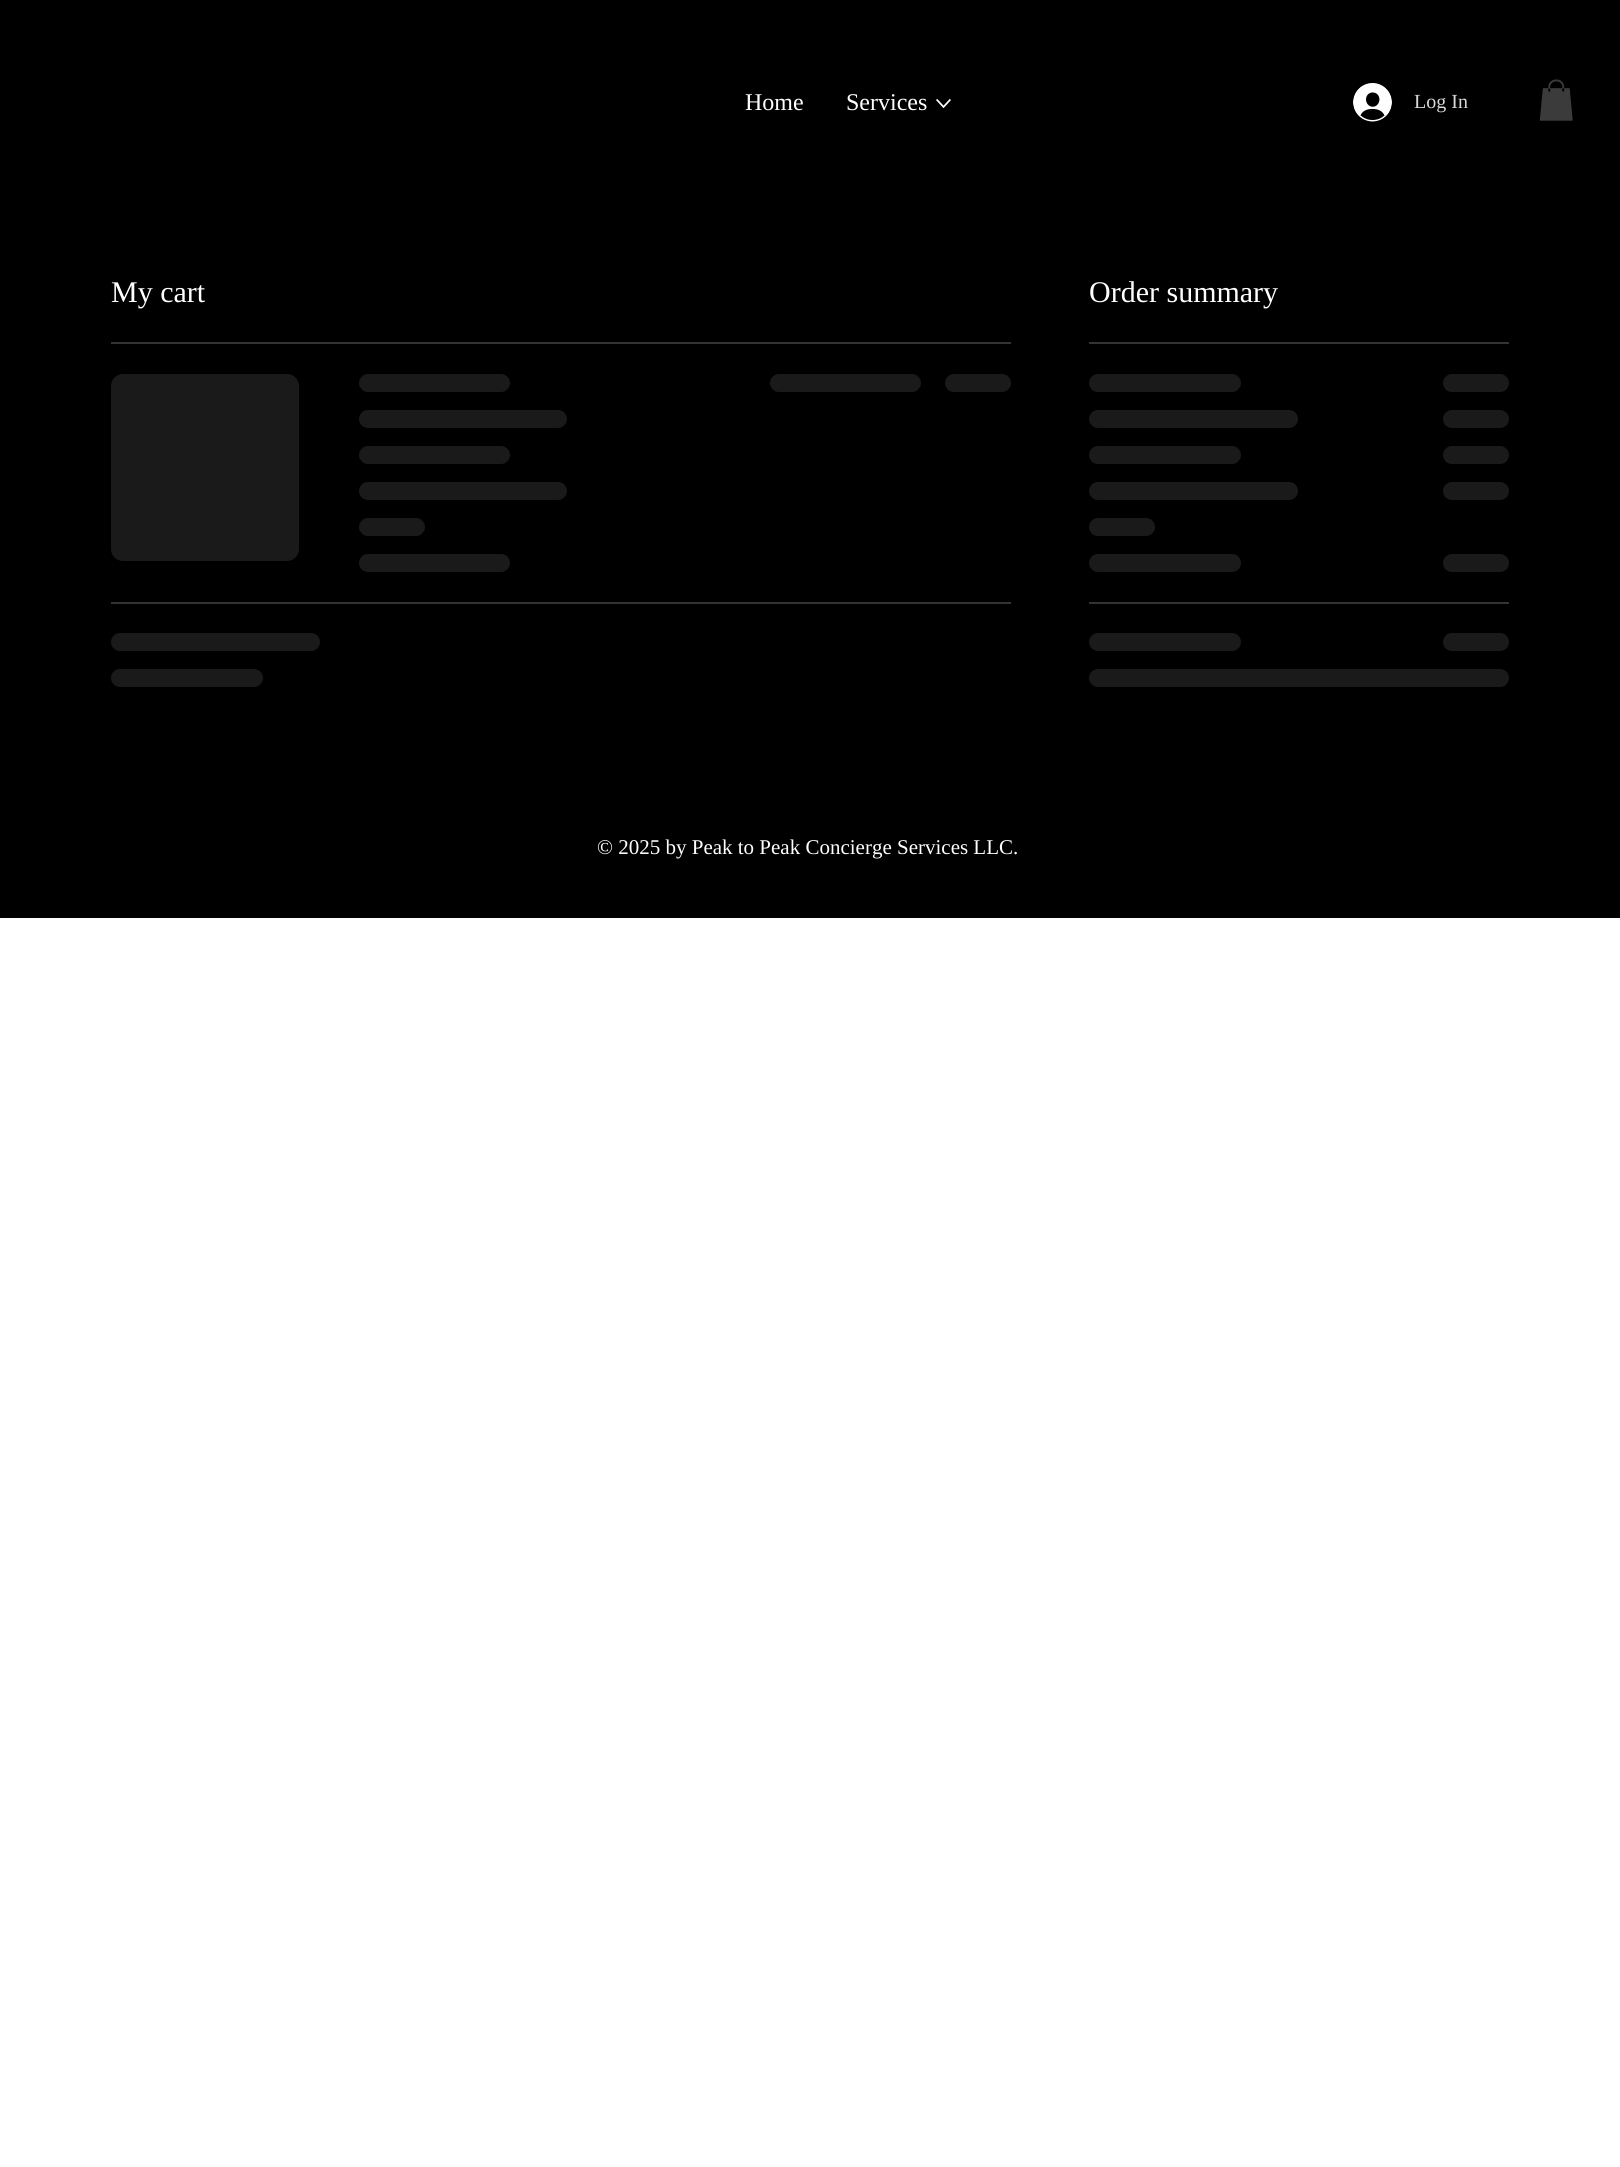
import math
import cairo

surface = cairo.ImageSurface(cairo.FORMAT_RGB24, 1620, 2167)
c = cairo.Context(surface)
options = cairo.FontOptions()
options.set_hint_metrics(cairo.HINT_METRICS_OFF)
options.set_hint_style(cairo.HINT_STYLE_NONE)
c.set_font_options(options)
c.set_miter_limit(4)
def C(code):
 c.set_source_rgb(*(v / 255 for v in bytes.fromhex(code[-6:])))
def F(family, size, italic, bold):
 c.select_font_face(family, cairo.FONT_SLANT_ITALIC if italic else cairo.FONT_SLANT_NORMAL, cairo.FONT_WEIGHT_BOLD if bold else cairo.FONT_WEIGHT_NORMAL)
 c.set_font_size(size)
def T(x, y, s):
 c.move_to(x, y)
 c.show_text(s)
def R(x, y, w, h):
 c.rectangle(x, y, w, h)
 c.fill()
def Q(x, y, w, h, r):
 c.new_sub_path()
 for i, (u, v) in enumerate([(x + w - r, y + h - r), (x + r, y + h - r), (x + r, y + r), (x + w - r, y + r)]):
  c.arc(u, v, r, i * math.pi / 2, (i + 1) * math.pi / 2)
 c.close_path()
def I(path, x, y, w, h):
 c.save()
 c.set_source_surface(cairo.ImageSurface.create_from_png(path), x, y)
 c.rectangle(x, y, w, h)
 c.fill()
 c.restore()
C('ffffff')
c.paint()
C('000000')
R(0,0,1620,918)
F('Liberation Serif',24,0,0)
C('ffffff')
T(745,110,'Home')
T(846,110,'Services')
I('1.png',936,98,15,11)
I('2.png',1353,83,39,39)
F('Liberation Serif',20,0,0)
C('d8d8d8')
T(1414,108,'Log In')
I('3.png',1539,79,34,42)
C('333333')
R(111,342,900,2)
F('Liberation Serif',30,0,0)
C('ffffff')
T(111,302,'My cart')
gradient = cairo.LinearGradient(111,467,861,467)
gradient.add_color_stop_rgba(.25,0.102,0.102,0.102,1)
gradient.add_color_stop_rgba(.37,0.2,0.2,0.2,1)
gradient.add_color_stop_rgba(.63,0.102,0.102,0.102,1)
c.set_source(gradient)
Q(111,374,188,187,12)
c.fill()
gradient = cairo.LinearGradient(359,383,965,383)
gradient.add_color_stop_rgba(.25,0.102,0.102,0.102,1)
gradient.add_color_stop_rgba(.37,0.2,0.2,0.2,1)
gradient.add_color_stop_rgba(.63,0.102,0.102,0.102,1)
c.set_source(gradient)
Q(359,374,151,18,9)
c.fill()
gradient = cairo.LinearGradient(359,419,1193,419)
gradient.add_color_stop_rgba(.25,0.102,0.102,0.102,1)
gradient.add_color_stop_rgba(.37,0.2,0.2,0.2,1)
gradient.add_color_stop_rgba(.63,0.102,0.102,0.102,1)
c.set_source(gradient)
Q(359,410,208,18,9)
c.fill()
gradient = cairo.LinearGradient(359,455,965,455)
gradient.add_color_stop_rgba(.25,0.102,0.102,0.102,1)
gradient.add_color_stop_rgba(.37,0.2,0.2,0.2,1)
gradient.add_color_stop_rgba(.63,0.102,0.102,0.102,1)
c.set_source(gradient)
Q(359,446,151,18,9)
c.fill()
gradient = cairo.LinearGradient(359,491,1193,491)
gradient.add_color_stop_rgba(.25,0.102,0.102,0.102,1)
gradient.add_color_stop_rgba(.37,0.2,0.2,0.2,1)
gradient.add_color_stop_rgba(.63,0.102,0.102,0.102,1)
c.set_source(gradient)
Q(359,482,208,18,9)
c.fill()
gradient = cairo.LinearGradient(359,527,623,527)
gradient.add_color_stop_rgba(.25,0.102,0.102,0.102,1)
gradient.add_color_stop_rgba(.37,0.2,0.2,0.2,1)
gradient.add_color_stop_rgba(.63,0.102,0.102,0.102,1)
c.set_source(gradient)
Q(359,518,66,18,9)
c.fill()
gradient = cairo.LinearGradient(359,563,965,563)
gradient.add_color_stop_rgba(.25,0.102,0.102,0.102,1)
gradient.add_color_stop_rgba(.37,0.2,0.2,0.2,1)
gradient.add_color_stop_rgba(.63,0.102,0.102,0.102,1)
c.set_source(gradient)
Q(359,554,151,18,9)
c.fill()
gradient = cairo.LinearGradient(770,383,1376,383)
gradient.add_color_stop_rgba(.25,0.102,0.102,0.102,1)
gradient.add_color_stop_rgba(.37,0.2,0.2,0.2,1)
gradient.add_color_stop_rgba(.63,0.102,0.102,0.102,1)
c.set_source(gradient)
Q(770,374,151,18,9)
c.fill()
gradient = cairo.LinearGradient(945,383,1209,383)
gradient.add_color_stop_rgba(.25,0.102,0.102,0.102,1)
gradient.add_color_stop_rgba(.37,0.2,0.2,0.2,1)
gradient.add_color_stop_rgba(.63,0.102,0.102,0.102,1)
c.set_source(gradient)
Q(945,374,66,18,9)
c.fill()
C('333333')
R(111,602,900,2)
gradient = cairo.LinearGradient(111,642,945,642)
gradient.add_color_stop_rgba(.25,0.102,0.102,0.102,1)
gradient.add_color_stop_rgba(.37,0.2,0.2,0.2,1)
gradient.add_color_stop_rgba(.63,0.102,0.102,0.102,1)
c.set_source(gradient)
Q(111,633,209,18,9)
c.fill()
gradient = cairo.LinearGradient(111,678,717,678)
gradient.add_color_stop_rgba(.25,0.102,0.102,0.102,1)
gradient.add_color_stop_rgba(.37,0.2,0.2,0.2,1)
gradient.add_color_stop_rgba(.63,0.102,0.102,0.102,1)
c.set_source(gradient)
Q(111,669,152,18,9)
c.fill()
C('333333')
R(1089,342,420,2)
C('ffffff')
T(1089,302,'Order summary')
gradient = cairo.LinearGradient(1089,383,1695,383)
gradient.add_color_stop_rgba(.25,0.102,0.102,0.102,1)
gradient.add_color_stop_rgba(.37,0.2,0.2,0.2,1)
gradient.add_color_stop_rgba(.63,0.102,0.102,0.102,1)
c.set_source(gradient)
Q(1089,374,152,18,9)
c.fill()
gradient = cairo.LinearGradient(1443,383,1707,383)
gradient.add_color_stop_rgba(.25,0.102,0.102,0.102,1)
gradient.add_color_stop_rgba(.37,0.2,0.2,0.2,1)
gradient.add_color_stop_rgba(.63,0.102,0.102,0.102,1)
c.set_source(gradient)
Q(1443,374,66,18,9)
c.fill()
gradient = cairo.LinearGradient(1089,419,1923,419)
gradient.add_color_stop_rgba(.25,0.102,0.102,0.102,1)
gradient.add_color_stop_rgba(.37,0.2,0.2,0.2,1)
gradient.add_color_stop_rgba(.63,0.102,0.102,0.102,1)
c.set_source(gradient)
Q(1089,410,209,18,9)
c.fill()
gradient = cairo.LinearGradient(1443,419,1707,419)
gradient.add_color_stop_rgba(.25,0.102,0.102,0.102,1)
gradient.add_color_stop_rgba(.37,0.2,0.2,0.2,1)
gradient.add_color_stop_rgba(.63,0.102,0.102,0.102,1)
c.set_source(gradient)
Q(1443,410,66,18,9)
c.fill()
gradient = cairo.LinearGradient(1089,455,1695,455)
gradient.add_color_stop_rgba(.25,0.102,0.102,0.102,1)
gradient.add_color_stop_rgba(.37,0.2,0.2,0.2,1)
gradient.add_color_stop_rgba(.63,0.102,0.102,0.102,1)
c.set_source(gradient)
Q(1089,446,152,18,9)
c.fill()
gradient = cairo.LinearGradient(1443,455,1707,455)
gradient.add_color_stop_rgba(.25,0.102,0.102,0.102,1)
gradient.add_color_stop_rgba(.37,0.2,0.2,0.2,1)
gradient.add_color_stop_rgba(.63,0.102,0.102,0.102,1)
c.set_source(gradient)
Q(1443,446,66,18,9)
c.fill()
gradient = cairo.LinearGradient(1089,491,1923,491)
gradient.add_color_stop_rgba(.25,0.102,0.102,0.102,1)
gradient.add_color_stop_rgba(.37,0.2,0.2,0.2,1)
gradient.add_color_stop_rgba(.63,0.102,0.102,0.102,1)
c.set_source(gradient)
Q(1089,482,209,18,9)
c.fill()
gradient = cairo.LinearGradient(1443,491,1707,491)
gradient.add_color_stop_rgba(.25,0.102,0.102,0.102,1)
gradient.add_color_stop_rgba(.37,0.2,0.2,0.2,1)
gradient.add_color_stop_rgba(.63,0.102,0.102,0.102,1)
c.set_source(gradient)
Q(1443,482,66,18,9)
c.fill()
gradient = cairo.LinearGradient(1089,527,1353,527)
gradient.add_color_stop_rgba(.25,0.102,0.102,0.102,1)
gradient.add_color_stop_rgba(.37,0.2,0.2,0.2,1)
gradient.add_color_stop_rgba(.63,0.102,0.102,0.102,1)
c.set_source(gradient)
Q(1089,518,66,18,9)
c.fill()
gradient = cairo.LinearGradient(1089,563,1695,563)
gradient.add_color_stop_rgba(.25,0.102,0.102,0.102,1)
gradient.add_color_stop_rgba(.37,0.2,0.2,0.2,1)
gradient.add_color_stop_rgba(.63,0.102,0.102,0.102,1)
c.set_source(gradient)
Q(1089,554,152,18,9)
c.fill()
gradient = cairo.LinearGradient(1443,563,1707,563)
gradient.add_color_stop_rgba(.25,0.102,0.102,0.102,1)
gradient.add_color_stop_rgba(.37,0.2,0.2,0.2,1)
gradient.add_color_stop_rgba(.63,0.102,0.102,0.102,1)
c.set_source(gradient)
Q(1443,554,66,18,9)
c.fill()
C('333333')
R(1089,602,420,2)
gradient = cairo.LinearGradient(1089,642,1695,642)
gradient.add_color_stop_rgba(.25,0.102,0.102,0.102,1)
gradient.add_color_stop_rgba(.37,0.2,0.2,0.2,1)
gradient.add_color_stop_rgba(.63,0.102,0.102,0.102,1)
c.set_source(gradient)
Q(1089,633,152,18,9)
c.fill()
gradient = cairo.LinearGradient(1443,642,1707,642)
gradient.add_color_stop_rgba(.25,0.102,0.102,0.102,1)
gradient.add_color_stop_rgba(.37,0.2,0.2,0.2,1)
gradient.add_color_stop_rgba(.63,0.102,0.102,0.102,1)
c.set_source(gradient)
Q(1443,633,66,18,9)
c.fill()
gradient = cairo.LinearGradient(1089,678,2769,678)
gradient.add_color_stop_rgba(.25,0.102,0.102,0.102,1)
gradient.add_color_stop_rgba(.37,0.2,0.2,0.2,1)
gradient.add_color_stop_rgba(.63,0.102,0.102,0.102,1)
c.set_source(gradient)
Q(1089,669,420,18,9)
c.fill()
F('Liberation Serif',21,0,0)
C('ffffff')
T(597,854,'© 2025 by Peak to Peak Concierge Services LLC.')
surface.write_to_png('o.png')
